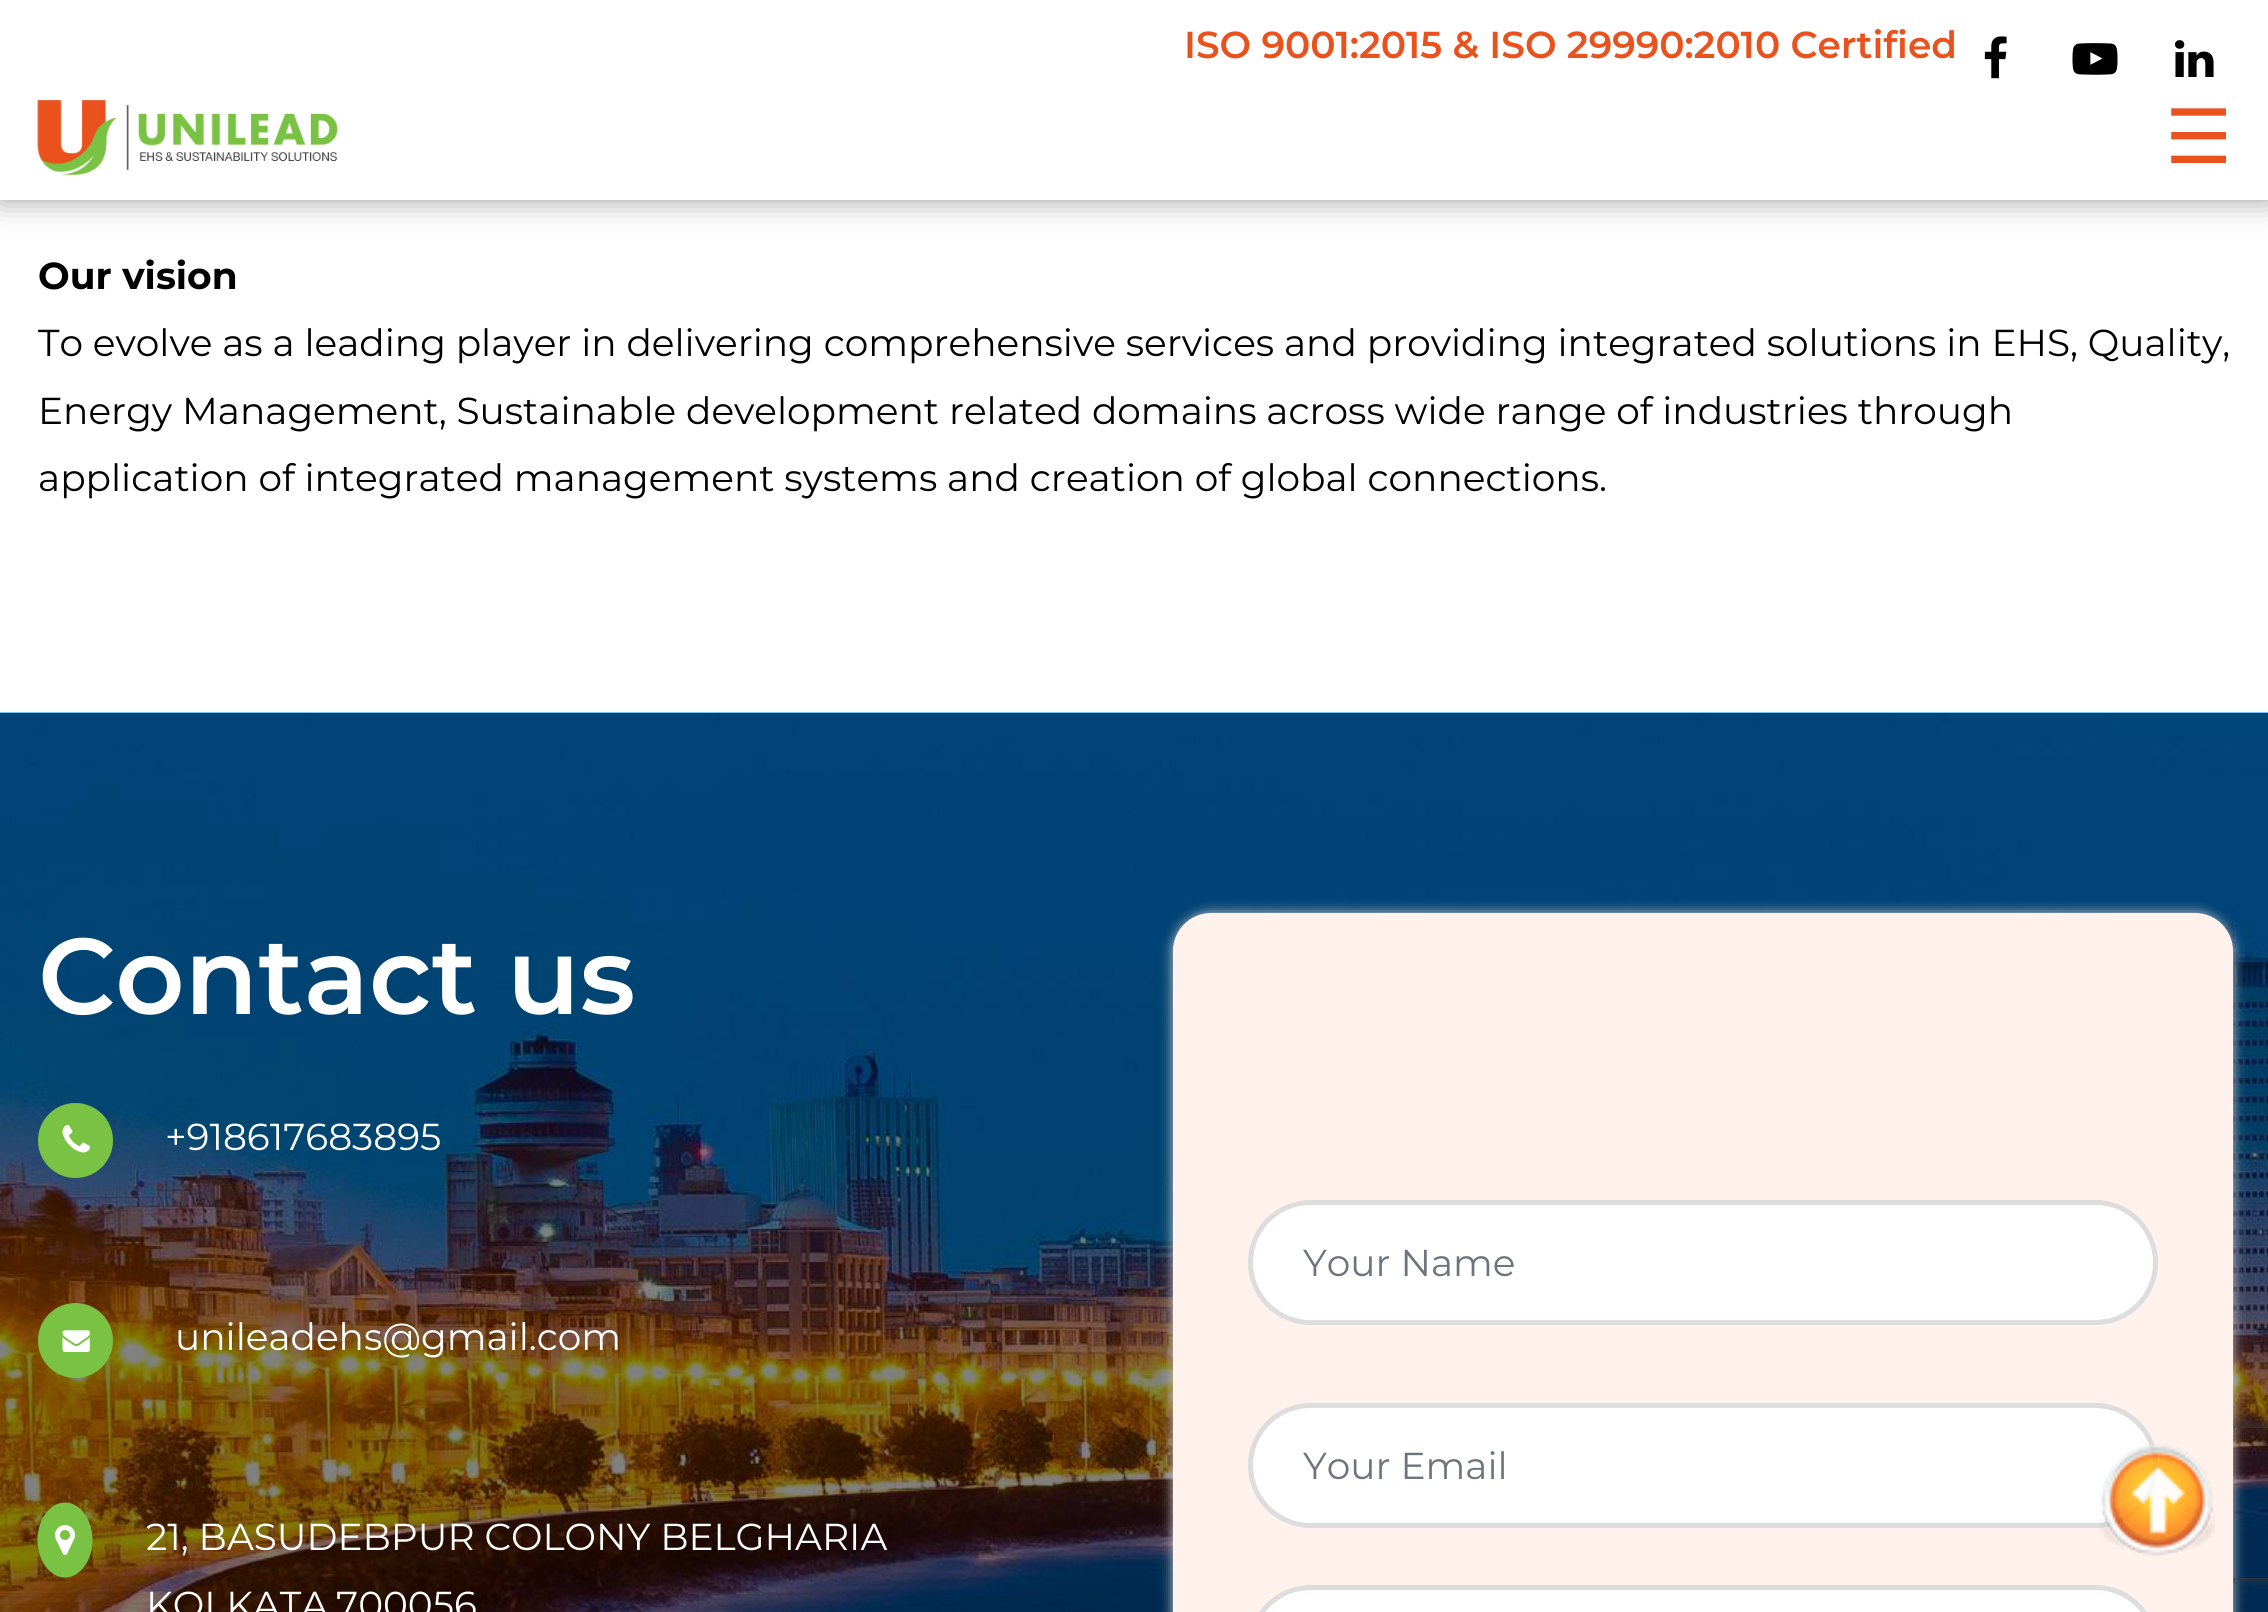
import math
import cairo

surface = cairo.ImageSurface(cairo.FORMAT_RGB24, 2268, 1612)
c = cairo.Context(surface)
options = cairo.FontOptions()
options.set_hint_metrics(cairo.HINT_METRICS_OFF)
options.set_hint_style(cairo.HINT_STYLE_NONE)
c.set_font_options(options)
c.set_miter_limit(4)
def C(code):
 c.set_source_rgb(*(v / 255 for v in bytes.fromhex(code[-6:])))
def F(family, size, italic, bold):
 c.select_font_face(family, cairo.FONT_SLANT_ITALIC if italic else cairo.FONT_SLANT_NORMAL, cairo.FONT_WEIGHT_BOLD if bold else cairo.FONT_WEIGHT_NORMAL)
 c.set_font_size(size)
def T(x, y, s):
 c.move_to(x, y)
 c.show_text(s)
def R(x, y, w, h):
 c.rectangle(x, y, w, h)
 c.fill()
def Q(x, y, w, h, r):
 c.new_sub_path()
 for i, (u, v) in enumerate([(x + w - r, y + h - r), (x + r, y + h - r), (x + r, y + r), (x + w - r, y + r)]):
  c.arc(u, v, r, i * math.pi / 2, (i + 1) * math.pi / 2)
 c.close_path()
def S(x, y, w, h, r, blur, alpha):
 c.push_group_with_content(cairo.CONTENT_ALPHA)
 c.set_operator(cairo.OPERATOR_SOURCE)
 for i in range(15, -16, -2):
  e = blur * i / 6
  if min(w, h) + 2 * e > 0:
   c.set_source_rgba(0, 0, 0, alpha * math.erfc((i - 1) / 8.5) / 2)
   Q(x - e, y - e, w + 2 * e, h + 2 * e, max(0, min(r + e + blur * .6, min(w, h) / 2 + e)))
   c.fill()
 c.mask(c.pop_group())
def I(path, x, y, w, h):
 c.save()
 c.set_source_surface(cairo.ImageSurface.create_from_png(path), x, y)
 c.rectangle(x, y, w, h)
 c.fill()
 c.restore()
C('ffffff')
c.paint()
C('000000')
S(0,0,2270,200,0,15,.4)
C('ffffff')
R(0,0,2268,200)
F('Montserrat SemiBold',37.5,0,0)
C('e9521d')
T(1184,58,'ISO 9001:2015 & ISO 29990:2010 Certified')
I('1.png',1984,36,23,43)
I('2.png',2072,43,46,32)
I('3.png',2175,40,39,37)
I('4.png',37,100,301,75)
F('DejaVu Sans',75,0,0)
T(2165,163,'☰')
F('Montserrat',37.5,0,1)
C('000000')
T(38,289,'Our vision')
F('Montserrat',37.5,0,0)
T(38,356,'To evolve as a leading player in delivering comprehensive services and providing integrated solutions in EHS, Quality,')
T(38,424,'Energy Management, Sustainable development related domains across wide range of industries through')
T(38,491,'application of integrated management systems and creation of global connections.')
I('5.png',0,712,2268,900)
F('Montserrat SemiBold',107.5,0,0)
C('ffffff')
T(38,1014,'Contact us')
C('7ac244')
c.new_path()
c.arc(75.5,1140.5,37.5,0,2 * math.pi)
c.fill()
I('6.png',62,1125,28,28)
F('Montserrat',37.5,0,0)
C('ffffff')
T(165,1150,'+918617683895')
C('7ac244')
c.new_path()
c.arc(75.5,1340.5,37.5,0,2 * math.pi)
c.fill()
I('7.png',62,1330,28,22)
C('ffffff')
T(175,1350,'unileadehs@gmail.com')
C('7ac244')
c.new_path()
c.move_to(65,1502.5)
c.curve_to(80,1502.5,92.5,1519.5,92.5,1540)
c.curve_to(92.5,1560.5,80,1577.5,65,1577.5)
c.curve_to(50,1577.5,37.5,1560.5,37.5,1540)
c.curve_to(37.5,1519.5,50,1502.5,65,1502.5)
c.close_path()
c.fill()
I('8.png',55,1525,20,30)
C('ffffff')
T(146,1550,'21, BASUDEBPUR COLONY BELGHARIA')
T(146,1618,'KOLKATA,700056')
C('cccccc')
S(1173,913,1060,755,38,6,1)
c.save()
c.set_fill_rule(cairo.FILL_RULE_EVEN_ODD)
c.new_path()
c.move_to(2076,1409)
c.line_to(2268,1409)
c.line_to(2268,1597)
c.line_to(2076,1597)
c.close_path()
c.move_to(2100,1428)
c.line_to(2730,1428)
c.curve_to(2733,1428,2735,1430,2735,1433)
c.line_to(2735,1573)
c.curve_to(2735,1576,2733,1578,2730,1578)
c.line_to(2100,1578)
c.curve_to(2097,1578,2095,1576,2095,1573)
c.line_to(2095,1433)
c.curve_to(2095,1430,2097,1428,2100,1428)
c.close_path()
c.clip()
C('414141')
S(2095,1428,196,150,5,6,1)
c.restore()
C('fff1ec')
Q(1173,913,1060,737,38)
c.fill()
C('ffffff')
Q(1250.5,1202.5,905,120,60)
c.fill_preserve()
C('dddddd')
c.set_line_width(5)
c.stroke()
C('6c757d')
T(1303,1276,'Your Name')
C('ffffff')
Q(1250.5,1405.5,905,120,60)
c.fill_preserve()
C('dddddd')
c.stroke()
C('6c757d')
T(1303,1479,'Your Email')
C('ffffff')
Q(1253,1590,900,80,57.5)
c.fill()
Q(1250.5,1587.5,905,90,60)
C('dddddd')
c.stroke()
I('9.png',2099,1444,116,112)
surface.write_to_png('o.png')
